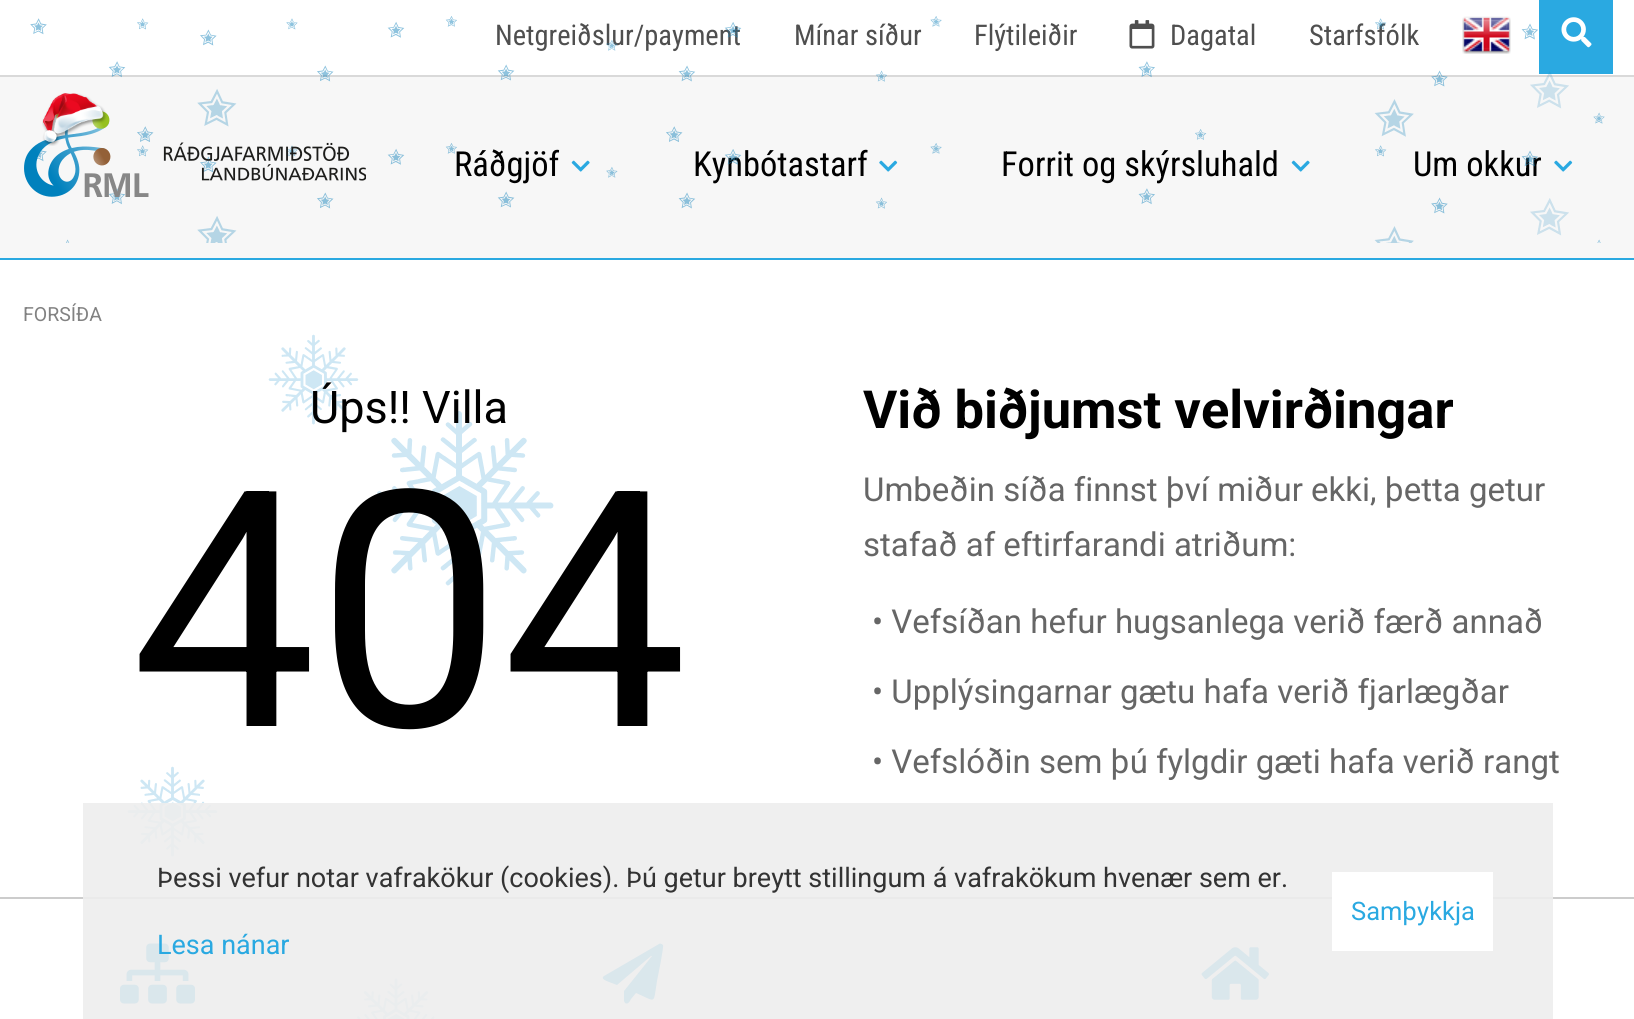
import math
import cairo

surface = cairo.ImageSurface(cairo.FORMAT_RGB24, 1634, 1019)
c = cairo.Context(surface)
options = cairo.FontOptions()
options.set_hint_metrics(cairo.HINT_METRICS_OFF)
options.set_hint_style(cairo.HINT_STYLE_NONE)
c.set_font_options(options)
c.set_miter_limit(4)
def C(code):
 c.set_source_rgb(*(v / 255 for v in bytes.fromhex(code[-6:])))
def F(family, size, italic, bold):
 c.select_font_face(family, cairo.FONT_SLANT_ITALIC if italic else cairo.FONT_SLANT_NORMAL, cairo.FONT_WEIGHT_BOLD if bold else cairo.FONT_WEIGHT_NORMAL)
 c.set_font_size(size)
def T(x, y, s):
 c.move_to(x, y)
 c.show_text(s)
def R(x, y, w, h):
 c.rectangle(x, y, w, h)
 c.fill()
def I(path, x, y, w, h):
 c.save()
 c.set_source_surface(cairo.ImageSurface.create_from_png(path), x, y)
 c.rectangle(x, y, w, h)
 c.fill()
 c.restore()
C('ffffff')
c.paint()
C('f7f7f7')
R(0,77,1634,181)
C('2aa9e1')
R(0,258,1634,2)
C('d9d9d9')
R(0,75,1634,2)
F('Roboto Condensed',28.5,0,0)
C('4f4f4f')
T(495,45,'Netgreiðslur/payment')
T(794,45,'Mínar síður')
T(974,45,'Flýtileiðir')
I('2.png',1129,20,26,29)
T(1170,45,'Dagatal')
T(1309,45,'Starfsfólk')
I('3.png',1462,16,49,38)
C('2aa9e1')
R(1539,0,74,74)
I('4.png',1561,17,31,31)
F('Roboto Condensed',34.5,0,0)
C('000000')
T(454,176,'Ráðgjöf')
I('7.png',571,160,19,12)
T(693,176,'Kynbótastarf')
I('8.png',879,160,19,12)
T(1001,176,'Forrit og skýrsluhald')
I('7.png',1291,160,19,12)
T(1413,176,'Um okkur')
I('8.png',1554,160,19,12)
I('1.png',30,16,1575,227)
I('6.png',24,111,342,86)
I('5.png',42,93,65,53)
F('Roboto',19.5,0,0)
C('828282')
T(23,321,'FORSÍÐA')
I('11.png',127,334,427,685)
F('Roboto',45,0,0)
C('000000')
T(310,423,'Úps!! Villa')
F('Roboto',330,0,0)
T(131,726,'404')
F('Roboto',52.5,0,1)
T(863,428,'Við biðjumst velvirðingar')
F('Roboto',33,0,0)
C('666666')
T(863,501,'Umbeðin síða finnst því miður ekki, þetta getur')
T(863,556,'stafað af eftirfarandi atriðum:')
T(872,633,'• Vefsíðan hefur hugsanlega verið færð annað')
T(872,703,'• Upplýsingarnar gætu hafa verið fjarlægðar')
T(872,773,'• Vefslóðin sem þú fylgdir gæti hafa verið rangt')
C('cccccc')
R(0,897,1634,2)
I('9.png',120,943,75,61)
C('2aa9e1')
c.new_path()
c.move_to(659,944)
c.line_to(604,976)
c.curve_to(600,979,607,981,609,982)
c.line_to(617,985)
c.line_to(651,956)
c.line_to(652,956)
c.line_to(624,991)
c.line_to(624,1001)
c.line_to(625,1003)
c.curve_to(628,1005,630,1001,631,999)
c.line_to(636,993)
c.curve_to(657,1002,653,1005,657,981)
c.curve_to(658,976,664,947,663,945)
c.curve_to(662,944,660,943,659,944)
c.close_path()
c.fill()
I('10.png',1201,947,68,53)
c.set_source_rgba(0.933,0.933,0.933,0.9)
R(83,803,1470,216)
F('Roboto',27,0,0)
C('333333')
T(157,887,'Þessi vefur notar vafrakökur (cookies). Þú getur breytt stillingum á vafrakökum hvenær sem er.')
C('2aa9e1')
T(157,954,'Lesa nánar')
C('ffffff')
R(1332,872,161,79)
F('Roboto',25.5,0,0)
C('2aa9e1')
T(1351,920,'Samþykkja')
surface.write_to_png('o.png')
